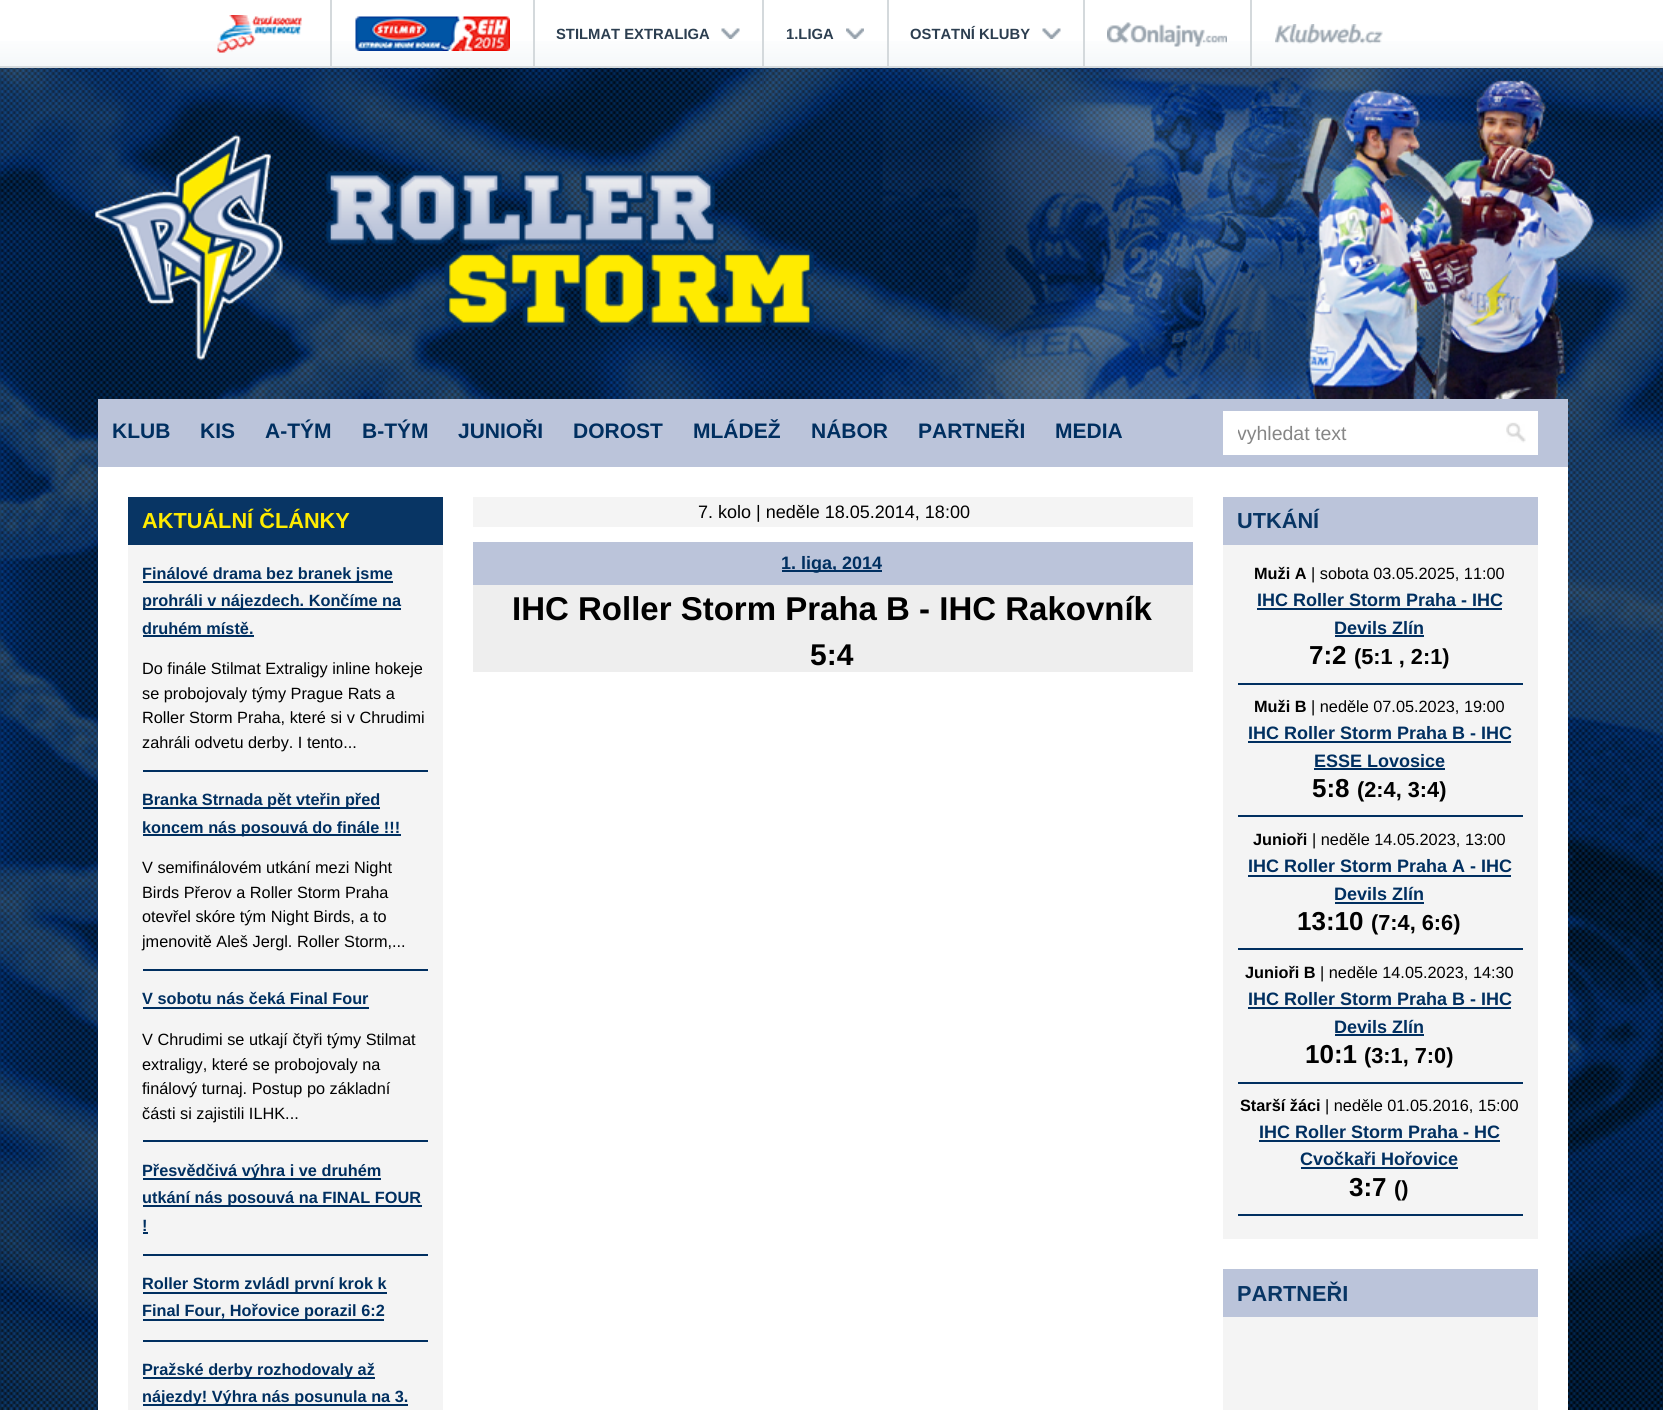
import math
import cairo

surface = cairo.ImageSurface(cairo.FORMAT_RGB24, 1663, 1410)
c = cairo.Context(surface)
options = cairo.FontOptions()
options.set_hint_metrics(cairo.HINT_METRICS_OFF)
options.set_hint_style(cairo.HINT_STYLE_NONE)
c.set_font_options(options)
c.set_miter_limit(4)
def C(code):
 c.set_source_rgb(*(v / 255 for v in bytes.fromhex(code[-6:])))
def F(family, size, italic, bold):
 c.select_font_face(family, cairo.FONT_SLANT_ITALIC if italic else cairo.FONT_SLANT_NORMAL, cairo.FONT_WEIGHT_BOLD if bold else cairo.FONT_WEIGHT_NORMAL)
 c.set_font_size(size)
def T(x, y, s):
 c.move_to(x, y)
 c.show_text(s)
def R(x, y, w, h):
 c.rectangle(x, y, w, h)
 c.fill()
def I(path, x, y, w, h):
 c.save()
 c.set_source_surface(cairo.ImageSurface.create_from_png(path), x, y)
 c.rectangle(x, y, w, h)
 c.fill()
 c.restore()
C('ffffff')
c.paint()
I('1.png',0,68,1663,1342)
I('2.png',94,68,1501,331)
gradient = cairo.LinearGradient(832,0,832,68)
gradient.add_color_stop_rgba(.49,1,1,1,1)
gradient.add_color_stop_rgba(1,0.957,0.969,0.976,1)
c.set_source(gradient)
R(0,41,1663,25)
C('d4d9dc')
R(0,66,1663,2)
I('3.png',217,15,85,38)
R(330,0,2,68)
I('4.png',355,16,155,35)
R(533,0,2,68)
F('Liberation Sans',14.8,0,1)
C('2c3e50')
T(556,39,'STILMAT EXTRALIGA')
I('5.png',721,28,19,11)
C('d4d9dc')
R(762,0,2,68)
C('2c3e50')
T(786,39,'1.LIGA')
I('6.png',846,28,18,11)
C('d4d9dc')
R(1083,0,2,68)
R(887,0,2,68)
C('2c3e50')
T(910,39,'OSTATNÍ KLUBY')
I('5.png',1042,28,19,11)
I('7.png',1107,22,120,25)
C('d4d9dc')
R(1250,0,2,68)
I('8.png',1275,24,108,20)
C('bbc4da')
R(98,399,1470,68)
F('Liberation Sans',21,0,1)
C('002f60')
T(112,438,'KLUB')
T(200,438,'KIS')
T(265,438,'A-TÝM')
T(362,438,'B-TÝM')
T(458,438,'JUNIOŘI')
T(573,438,'DOROST')
T(693,438,'MLÁDEŽ')
T(811,438,'NÁBOR')
T(918,438,'PARTNEŘI')
T(1055,438,'MEDIA')
C('ffffff')
R(1223,411,315,44)
I('9.png',1506,422,20,21)
c.save()
c.rectangle(1238,422,247,22)
c.clip()
F('Liberation Sans',19.5,0,0)
C('868686')
T(1237,440,'vyhledat text')
c.restore()
R(98,467,1470,943)
C('083564')
R(128,497,315,48)
F('Liberation Sans',21.75,0,1)
C('ffeb00')
T(142,528,'AKTUÁLNÍ ČLÁNKY')
C('f4f4f4')
R(128,545,315,865)
C('002f60')
R(143,581,250,2)
F('Liberation Sans',16.3,0,1)
T(142,579,'Finálové drama bez branek jsme')
R(143,608,258,2)
T(142,606,'prohráli v nájezdech. Končíme na')
T(142,634,'druhém místě.')
R(143,635,111,2)
F('Liberation Sans',16.3,0,0)
C('000000')
T(142,674,'Do finále Stilmat Extraligy inline hokeje')
T(142,699,'se probojovaly týmy Prague Rats a')
T(142,723,'Roller Storm Praha, které si v Chrudimi')
T(142,748,'zahráli odvetu derby. I tento...')
C('002f60')
R(143,770,285,2)
R(143,807,237,2)
F('Liberation Sans',16.3,0,1)
T(142,805,'Branka Strnada pět vteřin před')
R(143,834,258,2)
T(142,833,'koncem nás posouvá do finále !!!')
F('Liberation Sans',16.3,0,0)
C('000000')
T(142,873,'V semifinálovém utkání mezi Night')
T(142,898,'Birds Přerov a Roller Storm Praha')
T(142,922,'otevřel skóre tým Night Birds, a to')
T(142,947,'jmenovitě Aleš Jergl. Roller Storm,...')
C('002f60')
R(143,969,285,2)
F('Liberation Sans',16.3,0,1)
T(142,1004,'V sobotu nás čeká Final Four')
R(143,1007,226,2)
F('Liberation Sans',16.3,0,0)
C('000000')
T(142,1045,'V Chrudimi se utkají čtyři týmy Stilmat')
T(142,1070,'extraligy, které se probojovaly na')
T(142,1094,'finálový turnaj. Postup po základní')
T(142,1119,'části si zajistili ILHK...')
C('002f60')
R(143,1140,285,2)
R(143,1178,238,2)
F('Liberation Sans',16.3,0,1)
T(142,1176,'Přesvědčivá výhra i ve druhém')
R(143,1205,279,2)
T(142,1203,'utkání nás posouvá na FINAL FOUR')
T(142,1231,'!')
R(143,1232,5,2)
R(143,1254,285,2)
R(143,1292,244,2)
T(142,1289,'Roller Storm zvládl první krok k')
R(143,1319,241,2)
T(142,1316,'Final Four, Hořovice porazil 6:2')
R(143,1340,285,2)
R(143,1377,232,2)
T(142,1375,'Pražské derby rozhodovaly až')
R(143,1404,265,2)
T(142,1402,'nájezdy! Výhra nás posunula na 3.')
C('f4f4f4')
R(473,497,720,30)
F('Liberation Sans',18,0,0)
C('000000')
T(698,518,'7. kolo | neděle 18.05.2014, 18:00')
C('bbc4da')
R(473,542,720,43)
C('002f60')
R(782,570,100,2)
F('Liberation Sans',18,0,1)
T(781,569,'1. liga, 2014')
C('eeeeee')
R(473,585,720,87)
F('Liberation Sans',33,0,1)
C('000000')
T(512,620,'IHC Roller Storm Praha B - IHC Rakovník')
F('Liberation Sans',30,0,1)
T(810,665,'5:4')
C('bbc4da')
R(1223,497,315,48)
F('Liberation Sans',21.75,0,1)
C('083564')
T(1237,528,'UTKÁNÍ')
C('f4f4f4')
R(1223,545,315,694)
F('Liberation Sans',16.3,0,1)
C('000000')
T(1254,579,'Muži A')
F('Liberation Sans',16.3,0,0)
T(1311,579,'| sobota 03.05.2025, 11:00')
F('Liberation Sans',18,0,1)
C('002f60')
T(1257,606,'IHC Roller Storm Praha - IHC')
R(1257,608,245,2)
T(1334,634,'Devils Zlín')
R(1335,635,89,2)
F('Liberation Sans',26,0,1)
C('000000')
T(1309,664,'7:2')
F('Liberation Sans',21.75,0,1)
T(1354,664,'(5:1 , 2:1)')
C('002f60')
R(1238,683,285,2)
F('Liberation Sans',16.3,0,1)
C('000000')
T(1254,712,'Muži B')
F('Liberation Sans',16.3,0,0)
T(1311,712,'| neděle 07.05.2023, 19:00')
F('Liberation Sans',18,0,1)
C('002f60')
T(1248,739,'IHC Roller Storm Praha B - IHC')
R(1248,741,263,2)
T(1314,767,'ESSE Lovosice')
R(1314,768,131,2)
F('Liberation Sans',26,0,1)
C('000000')
T(1312,797,'5:8')
F('Liberation Sans',21.75,0,1)
T(1357,797,'(2:4, 3:4)')
C('002f60')
R(1238,815,285,2)
F('Liberation Sans',16.3,0,1)
C('000000')
T(1253,845,'Junioři')
F('Liberation Sans',16.3,0,0)
T(1312,845,'| neděle 14.05.2023, 13:00')
F('Liberation Sans',18,0,1)
C('002f60')
T(1248,872,'IHC Roller Storm Praha A - IHC')
R(1248,875,263,2)
T(1334,900,'Devils Zlín')
R(1335,902,89,2)
F('Liberation Sans',26,0,1)
C('000000')
T(1297,930,'13:10')
F('Liberation Sans',21.75,0,1)
T(1371,930,'(7:4, 6:6)')
C('002f60')
R(1238,948,285,2)
F('Liberation Sans',16.3,0,1)
C('000000')
T(1245,978,'Junioři B')
F('Liberation Sans',16.3,0,0)
T(1320,978,'| neděle 14.05.2023, 14:30')
F('Liberation Sans',18,0,1)
C('002f60')
T(1248,1005,'IHC Roller Storm Praha B - IHC')
R(1248,1007,263,2)
T(1334,1033,'Devils Zlín')
R(1335,1034,89,2)
F('Liberation Sans',26,0,1)
C('000000')
T(1305,1063,'10:1')
F('Liberation Sans',21.75,0,1)
T(1364,1063,'(3:1, 7:0)')
C('002f60')
R(1238,1082,285,2)
F('Liberation Sans',16.3,0,1)
C('000000')
T(1240,1111,'Starší žáci')
F('Liberation Sans',16.3,0,0)
T(1325,1111,'| neděle 01.05.2016, 15:00')
F('Liberation Sans',18,0,1)
C('002f60')
T(1259,1138,'IHC Roller Storm Praha - HC')
R(1259,1140,241,2)
T(1300,1165,'Cvočkaři Hořovice')
R(1301,1167,157,2)
F('Liberation Sans',26,0,1)
C('000000')
T(1349,1196,'3:7')
F('Liberation Sans',21.75,0,1)
T(1394,1196,'()')
C('002f60')
R(1238,1214,285,2)
C('bbc4da')
R(1223,1269,315,48)
C('083564')
T(1237,1301,'PARTNEŘI')
C('f4f4f4')
R(1223,1317,315,93)
surface.write_to_png('o.png')
